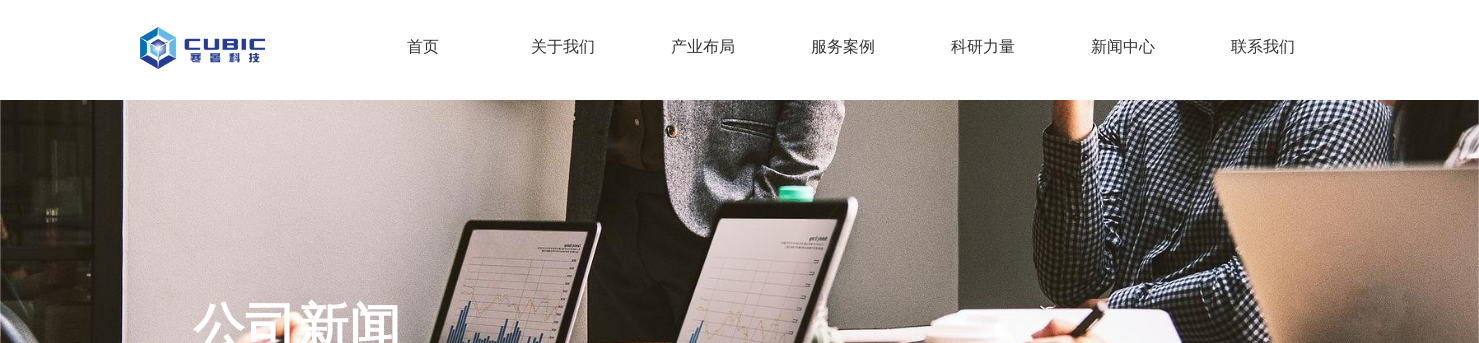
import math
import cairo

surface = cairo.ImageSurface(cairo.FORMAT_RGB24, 1479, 343)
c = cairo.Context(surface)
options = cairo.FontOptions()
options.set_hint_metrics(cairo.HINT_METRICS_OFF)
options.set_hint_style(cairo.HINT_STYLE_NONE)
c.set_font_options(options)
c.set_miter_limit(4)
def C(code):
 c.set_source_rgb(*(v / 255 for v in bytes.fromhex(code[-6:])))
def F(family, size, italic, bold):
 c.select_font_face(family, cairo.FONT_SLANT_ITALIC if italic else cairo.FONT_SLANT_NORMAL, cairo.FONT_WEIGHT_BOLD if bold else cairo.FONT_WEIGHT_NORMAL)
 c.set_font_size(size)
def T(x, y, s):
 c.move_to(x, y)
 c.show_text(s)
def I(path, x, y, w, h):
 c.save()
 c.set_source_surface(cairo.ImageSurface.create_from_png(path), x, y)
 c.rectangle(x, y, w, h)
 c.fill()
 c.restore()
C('ffffff')
c.paint()
I('1.png',140,27,125,42)
F('WenQuanYi Zen Hei Medium',16,0,0)
C('333333')
T(407,52,'首页')
T(531,52,'关于我们')
T(671,52,'产业布局')
T(811,52,'服务案例')
T(951,52,'科研力量')
T(1091,52,'新闻中心')
T(1231,52,'联系我们')
I('2.png',0,100,1479,243)
F('WenQuanYi Zen Hei',52,0,1)
C('ffffff')
T(193,345,'公司新闻')
surface.write_to_png('o.png')
